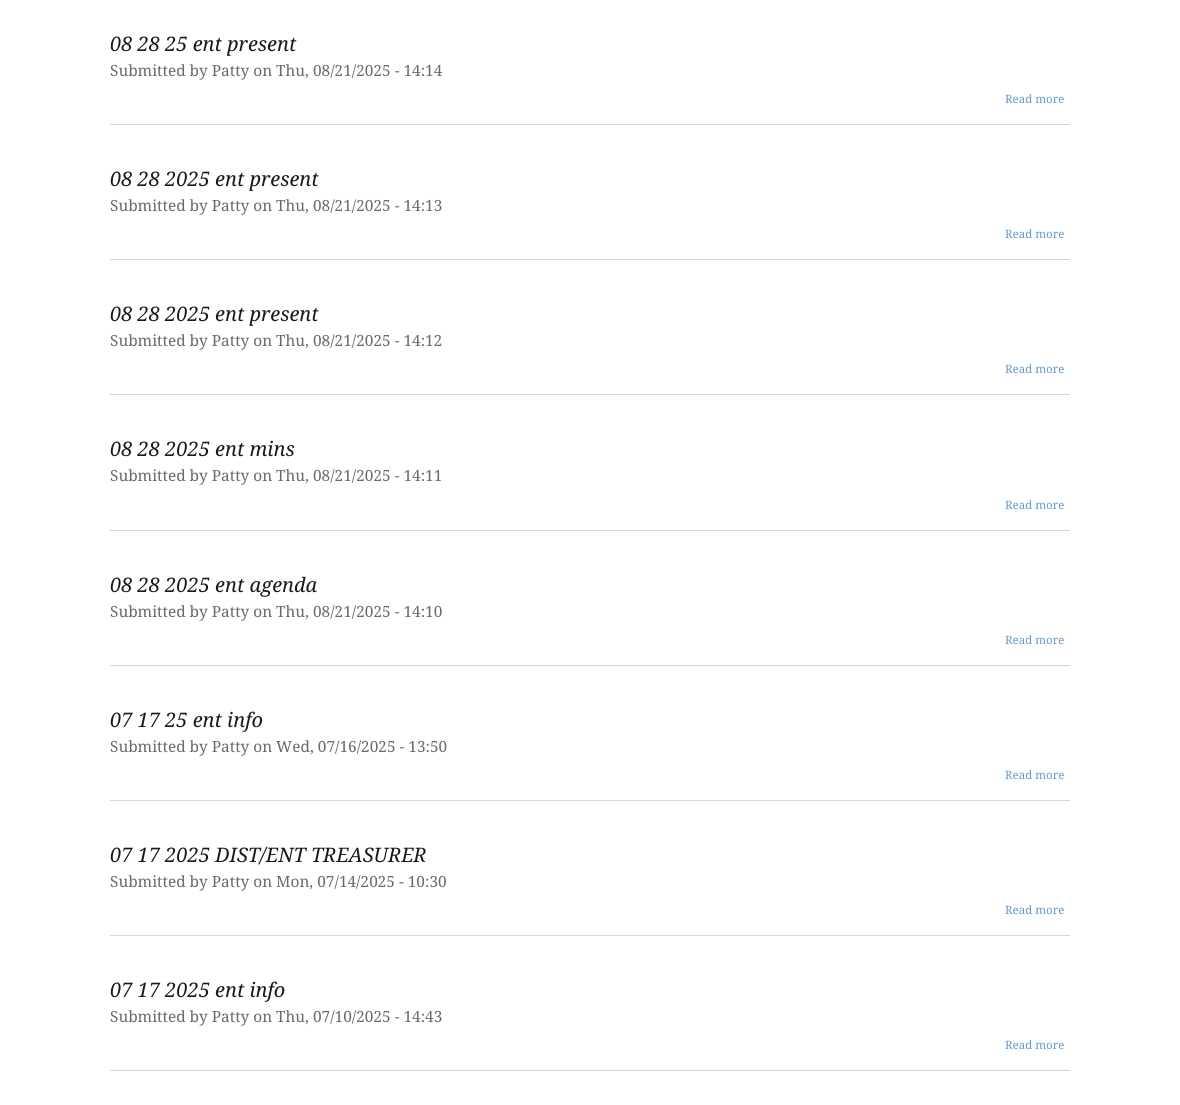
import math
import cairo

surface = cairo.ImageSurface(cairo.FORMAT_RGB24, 1180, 1105)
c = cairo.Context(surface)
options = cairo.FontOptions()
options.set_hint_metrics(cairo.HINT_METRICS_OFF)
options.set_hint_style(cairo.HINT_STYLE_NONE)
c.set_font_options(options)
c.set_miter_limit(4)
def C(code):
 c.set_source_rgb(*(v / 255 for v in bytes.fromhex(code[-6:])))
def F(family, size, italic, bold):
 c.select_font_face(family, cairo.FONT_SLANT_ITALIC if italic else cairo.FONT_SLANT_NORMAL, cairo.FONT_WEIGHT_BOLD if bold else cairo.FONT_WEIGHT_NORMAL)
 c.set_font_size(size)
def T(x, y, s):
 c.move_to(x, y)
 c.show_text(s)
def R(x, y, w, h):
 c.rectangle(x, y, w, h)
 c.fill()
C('ffffff')
c.paint()
C('d3d7d9')
R(110,124,960,1)
F('Droid Serif',20,1,0)
C('181818')
T(110,51,'08 28 25 ent present')
F('Droid Serif',15.4,0,0)
C('68696b')
T(110,76,'Submitted by Patty on Thu, 08/21/2025 - 14:14')
F('Droid Serif',11.5,0,0)
C('6699cc')
T(1005,103,'Read more')
C('d3d7d9')
R(110,259,960,1)
F('Droid Serif',20,1,0)
C('181818')
T(110,186,'08 28 2025 ent present')
F('Droid Serif',15.4,0,0)
C('68696b')
T(110,211,'Submitted by Patty on Thu, 08/21/2025 - 14:13')
F('Droid Serif',11.5,0,0)
C('6699cc')
T(1005,238,'Read more')
C('d3d7d9')
R(110,394,960,1)
F('Droid Serif',20,1,0)
C('181818')
T(110,321,'08 28 2025 ent present')
F('Droid Serif',15.4,0,0)
C('68696b')
T(110,346,'Submitted by Patty on Thu, 08/21/2025 - 14:12')
F('Droid Serif',11.5,0,0)
C('6699cc')
T(1005,373,'Read more')
C('d3d7d9')
R(110,530,960,1)
F('Droid Serif',20,1,0)
C('181818')
T(110,456,'08 28 2025 ent mins')
F('Droid Serif',15.4,0,0)
C('68696b')
T(110,481,'Submitted by Patty on Thu, 08/21/2025 - 14:11')
F('Droid Serif',11.5,0,0)
C('6699cc')
T(1005,509,'Read more')
C('d3d7d9')
R(110,665,960,1)
F('Droid Serif',20,1,0)
C('181818')
T(110,592,'08 28 2025 ent agenda')
F('Droid Serif',15.4,0,0)
C('68696b')
T(110,617,'Submitted by Patty on Thu, 08/21/2025 - 14:10')
F('Droid Serif',11.5,0,0)
C('6699cc')
T(1005,644,'Read more')
C('d3d7d9')
R(110,800,960,1)
F('Droid Serif',20,1,0)
C('181818')
T(110,727,'07 17 25 ent info')
F('Droid Serif',15.4,0,0)
C('68696b')
T(110,752,'Submitted by Patty on Wed, 07/16/2025 - 13:50')
F('Droid Serif',11.5,0,0)
C('6699cc')
T(1005,779,'Read more')
C('d3d7d9')
R(110,935,960,1)
F('Droid Serif',20,1,0)
C('181818')
T(110,862,'07 17 2025 DIST/ENT TREASURER')
F('Droid Serif',15.4,0,0)
C('68696b')
T(110,887,'Submitted by Patty on Mon, 07/14/2025 - 10:30')
F('Droid Serif',11.5,0,0)
C('6699cc')
T(1005,914,'Read more')
C('d3d7d9')
R(110,1070,960,1)
F('Droid Serif',20,1,0)
C('181818')
T(110,997,'07 17 2025 ent info')
F('Droid Serif',15.4,0,0)
C('68696b')
T(110,1022,'Submitted by Patty on Thu, 07/10/2025 - 14:43')
F('Droid Serif',11.5,0,0)
C('6699cc')
T(1005,1049,'Read more')
surface.write_to_png('o.png')
